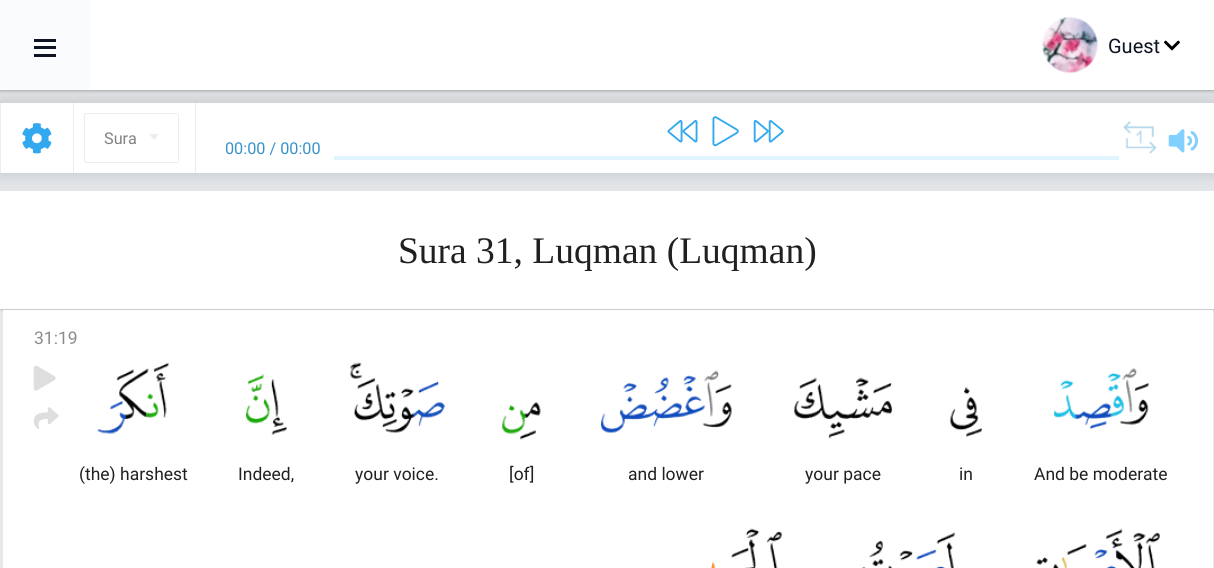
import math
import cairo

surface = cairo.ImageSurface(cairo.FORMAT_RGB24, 1214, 568)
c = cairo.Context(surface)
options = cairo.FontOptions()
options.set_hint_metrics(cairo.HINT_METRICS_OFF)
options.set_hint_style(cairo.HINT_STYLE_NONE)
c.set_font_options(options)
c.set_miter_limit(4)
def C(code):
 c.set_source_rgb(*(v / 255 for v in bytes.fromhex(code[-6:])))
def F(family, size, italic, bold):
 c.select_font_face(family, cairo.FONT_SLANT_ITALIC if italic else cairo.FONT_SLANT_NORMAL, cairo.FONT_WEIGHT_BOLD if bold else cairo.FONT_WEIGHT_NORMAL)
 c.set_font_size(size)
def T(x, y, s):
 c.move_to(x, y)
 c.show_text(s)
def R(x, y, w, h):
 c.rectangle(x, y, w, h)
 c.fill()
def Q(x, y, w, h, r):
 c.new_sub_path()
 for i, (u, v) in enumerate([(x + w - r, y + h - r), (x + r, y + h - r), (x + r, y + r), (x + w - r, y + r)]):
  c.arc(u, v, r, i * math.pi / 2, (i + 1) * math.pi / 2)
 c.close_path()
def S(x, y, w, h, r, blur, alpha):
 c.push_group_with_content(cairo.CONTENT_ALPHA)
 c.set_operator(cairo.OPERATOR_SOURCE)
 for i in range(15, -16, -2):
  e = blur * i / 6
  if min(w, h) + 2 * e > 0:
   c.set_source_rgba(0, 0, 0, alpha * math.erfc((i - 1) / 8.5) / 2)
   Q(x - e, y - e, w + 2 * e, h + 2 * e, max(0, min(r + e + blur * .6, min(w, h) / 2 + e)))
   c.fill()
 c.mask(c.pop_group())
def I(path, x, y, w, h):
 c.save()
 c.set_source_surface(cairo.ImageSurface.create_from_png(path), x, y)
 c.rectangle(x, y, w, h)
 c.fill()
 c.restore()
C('e5e8eb')
c.paint()
C('000000')
S(0,1,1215,90,0,1,.2)
C('aaaaaa')
S(0,1,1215,90,0,2.5,.5)
C('000000')
S(1,193,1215,118,0,.5,.1)
C('ffffff')
R(0,191,1214,118)
C('000000')
S(-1,101,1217,73,0,9.5,.15)
C('ffffff')
R(90,0,1124,90)
C('fafbfc')
R(0,0,90,90)
C('0d1322')
R(34,39,22,3)
R(34,46,22,3)
R(34,54,22,3)
I('1.png',1042,17,56,56)
F('Roboto',20,0,0)
T(1108,53,'Guest')
I('2.png',1164,40,16,11)
C('ffffff')
R(1,103,1213,70)
C('ececec')
R(73,103,1,70)
R(0,103,1,70)
I('3.png',22,123,30,31)
Q(84.5,113.5,94,49,2)
c.set_line_width(1)
c.stroke()
F('Roboto',16.25,0,0)
C('828282')
T(104,144,'Sura')
C('ececec')
c.new_path()
c.move_to(149,134)
c.line_to(159,134)
c.line_to(154,140)
c.close_path()
c.fill()
R(195,103,1,70)
C('3993c9')
T(225,154,'00:00 / 00:00')
I('4.png',667,120,31,23)
I('5.png',712,116,27,31)
I('6.png',753,120,31,23)
C('e0f5ff')
R(334,156,785,4)
I('7.png',1123,121,34,33)
I('8.png',1168,129,30,24)
C('cccccc')
R(0,309,1214,1)
F('Liberation Serif',37.5,0,0)
C('202020')
T(398,263,'Sura 31, Luqman (Luqman)')
C('ffffff')
R(3,310,1210,258)
F('Roboto',17.5,0,0)
C('8c8c8c')
T(34,344,'31:19')
I('9.png',33,365,23,26)
I('10.png',33,407,26,22)
I('11.png',97,362,72,72)
C('202020')
T(79,480,'(the) harshest')
I('12.png',246,374,41,61)
T(238,480,'Indeed,')
I('13.png',350,362,95,71)
T(355,480,'your voice.')
I('14.png',502,402,39,38)
T(509,480,'[of]')
I('15.png',601,370,131,63)
T(628,480,'and lower')
I('16.png',794,377,99,62)
T(805,480,'your pace')
I('17.png',950,387,32,50)
T(959,480,'in')
I('18.png',1054,368,95,62)
T(1034,480,'And be moderate')
I('19.png',710,528,72,40)
I('20.png',862,532,93,36)
I('21.png',1027,528,133,40)
surface.write_to_png('o.png')
